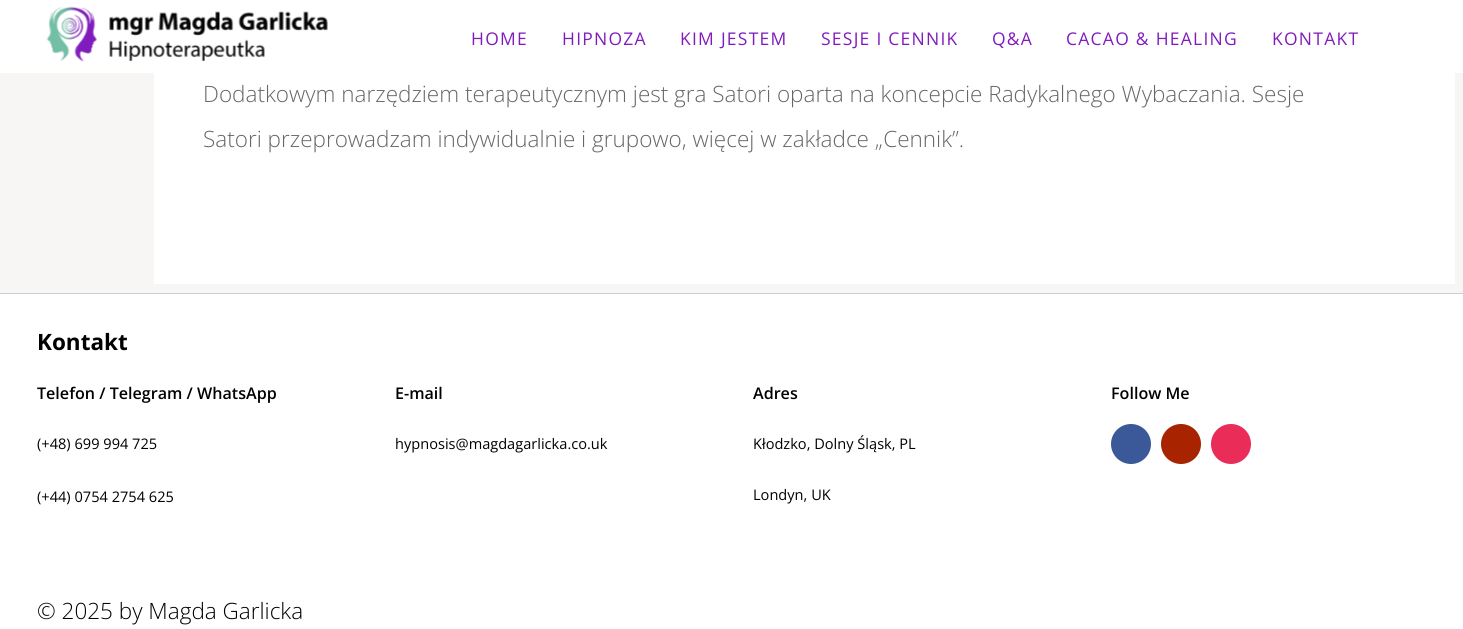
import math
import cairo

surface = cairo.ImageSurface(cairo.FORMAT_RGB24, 1463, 629)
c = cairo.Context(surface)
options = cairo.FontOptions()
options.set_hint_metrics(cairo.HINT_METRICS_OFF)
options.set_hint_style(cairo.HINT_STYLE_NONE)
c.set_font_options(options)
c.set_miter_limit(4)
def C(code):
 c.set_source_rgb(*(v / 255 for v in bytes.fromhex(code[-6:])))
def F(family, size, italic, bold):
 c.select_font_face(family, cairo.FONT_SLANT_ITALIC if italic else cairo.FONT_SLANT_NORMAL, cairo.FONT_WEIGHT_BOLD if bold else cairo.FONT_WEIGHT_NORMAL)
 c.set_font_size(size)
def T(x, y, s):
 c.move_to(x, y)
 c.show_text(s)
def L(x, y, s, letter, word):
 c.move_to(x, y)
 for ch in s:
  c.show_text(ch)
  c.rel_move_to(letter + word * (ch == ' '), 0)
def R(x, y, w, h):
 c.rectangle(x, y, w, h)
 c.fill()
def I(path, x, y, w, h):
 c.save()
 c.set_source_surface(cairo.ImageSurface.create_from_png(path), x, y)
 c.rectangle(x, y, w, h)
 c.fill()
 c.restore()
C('ffffff')
c.paint()
I('1.png',46,6,282,56)
F('Open Sans',17.5,0,0)
C('801bbd')
L(471,45,'HOME',1.25,0)
L(562,45,'HIPNOZA',1.25,0)
L(680,45,'KIM JESTEM',1.25,0)
L(821,45,'SESJE I CENNIK',1.25,0)
L(992,45,'Q&A',1.25,0)
L(1066,45,'CACAO & HEALING',1.25,0)
L(1272,45,'KONTAKT',1.25,0)
C('f7f6f4')
R(9,73,145,211)
R(1455,73,8,211)
R(9,284,1454,9)
R(0,73,9,220)
F('Open Sans Light',22.5,0,0)
C('666666')
T(203,102,'Dodatkowym narzędziem terapeutycznym jest gra Satori oparta na koncepcie Radykalnego Wybaczania. Sesje')
T(203,147,'Satori przeprowadzam indywidualnie i grupowo, więcej w zakładce „Cennik”.')
C('cdcdcd')
R(0,293,1463,1)
F('Open Sans',22.5,0,1)
C('000000')
T(37,350,'Kontakt')
F('Open Sans SemiBold',16.1,0,0)
T(37,399,'Telefon / Telegram / WhatsApp')
F('Open Sans',14.6,0,0)
T(37,449,'(+48) 699 994 725')
T(37,502,'(+44) 0754 2754 625')
F('Open Sans SemiBold',16.1,0,0)
T(395,399,'E-mail')
F('Open Sans',14.6,0,0)
T(395,449,'hypnosis@magdagarlicka.co.uk')
F('Open Sans SemiBold',16.1,0,0)
T(753,399,'Adres')
F('Open Sans',14.6,0,0)
T(753,449,'Kłodzko, Dolny Śląsk, PL')
T(753,500,'Londyn, UK')
F('Open Sans SemiBold',16.1,0,0)
T(1111,399,'Follow Me')
C('3b5998')
c.new_path()
c.arc(1131,444,20,0,2 * math.pi)
c.fill()
C('a82400')
c.arc(1181,444,20,0,2 * math.pi)
c.fill()
C('ea2c59')
c.arc(1231,444,20,0,2 * math.pi)
c.fill()
F('Open Sans Light',22.5,0,0)
C('000000')
T(37,619,'© 2025 by Magda Garlicka')
surface.write_to_png('o.png')
